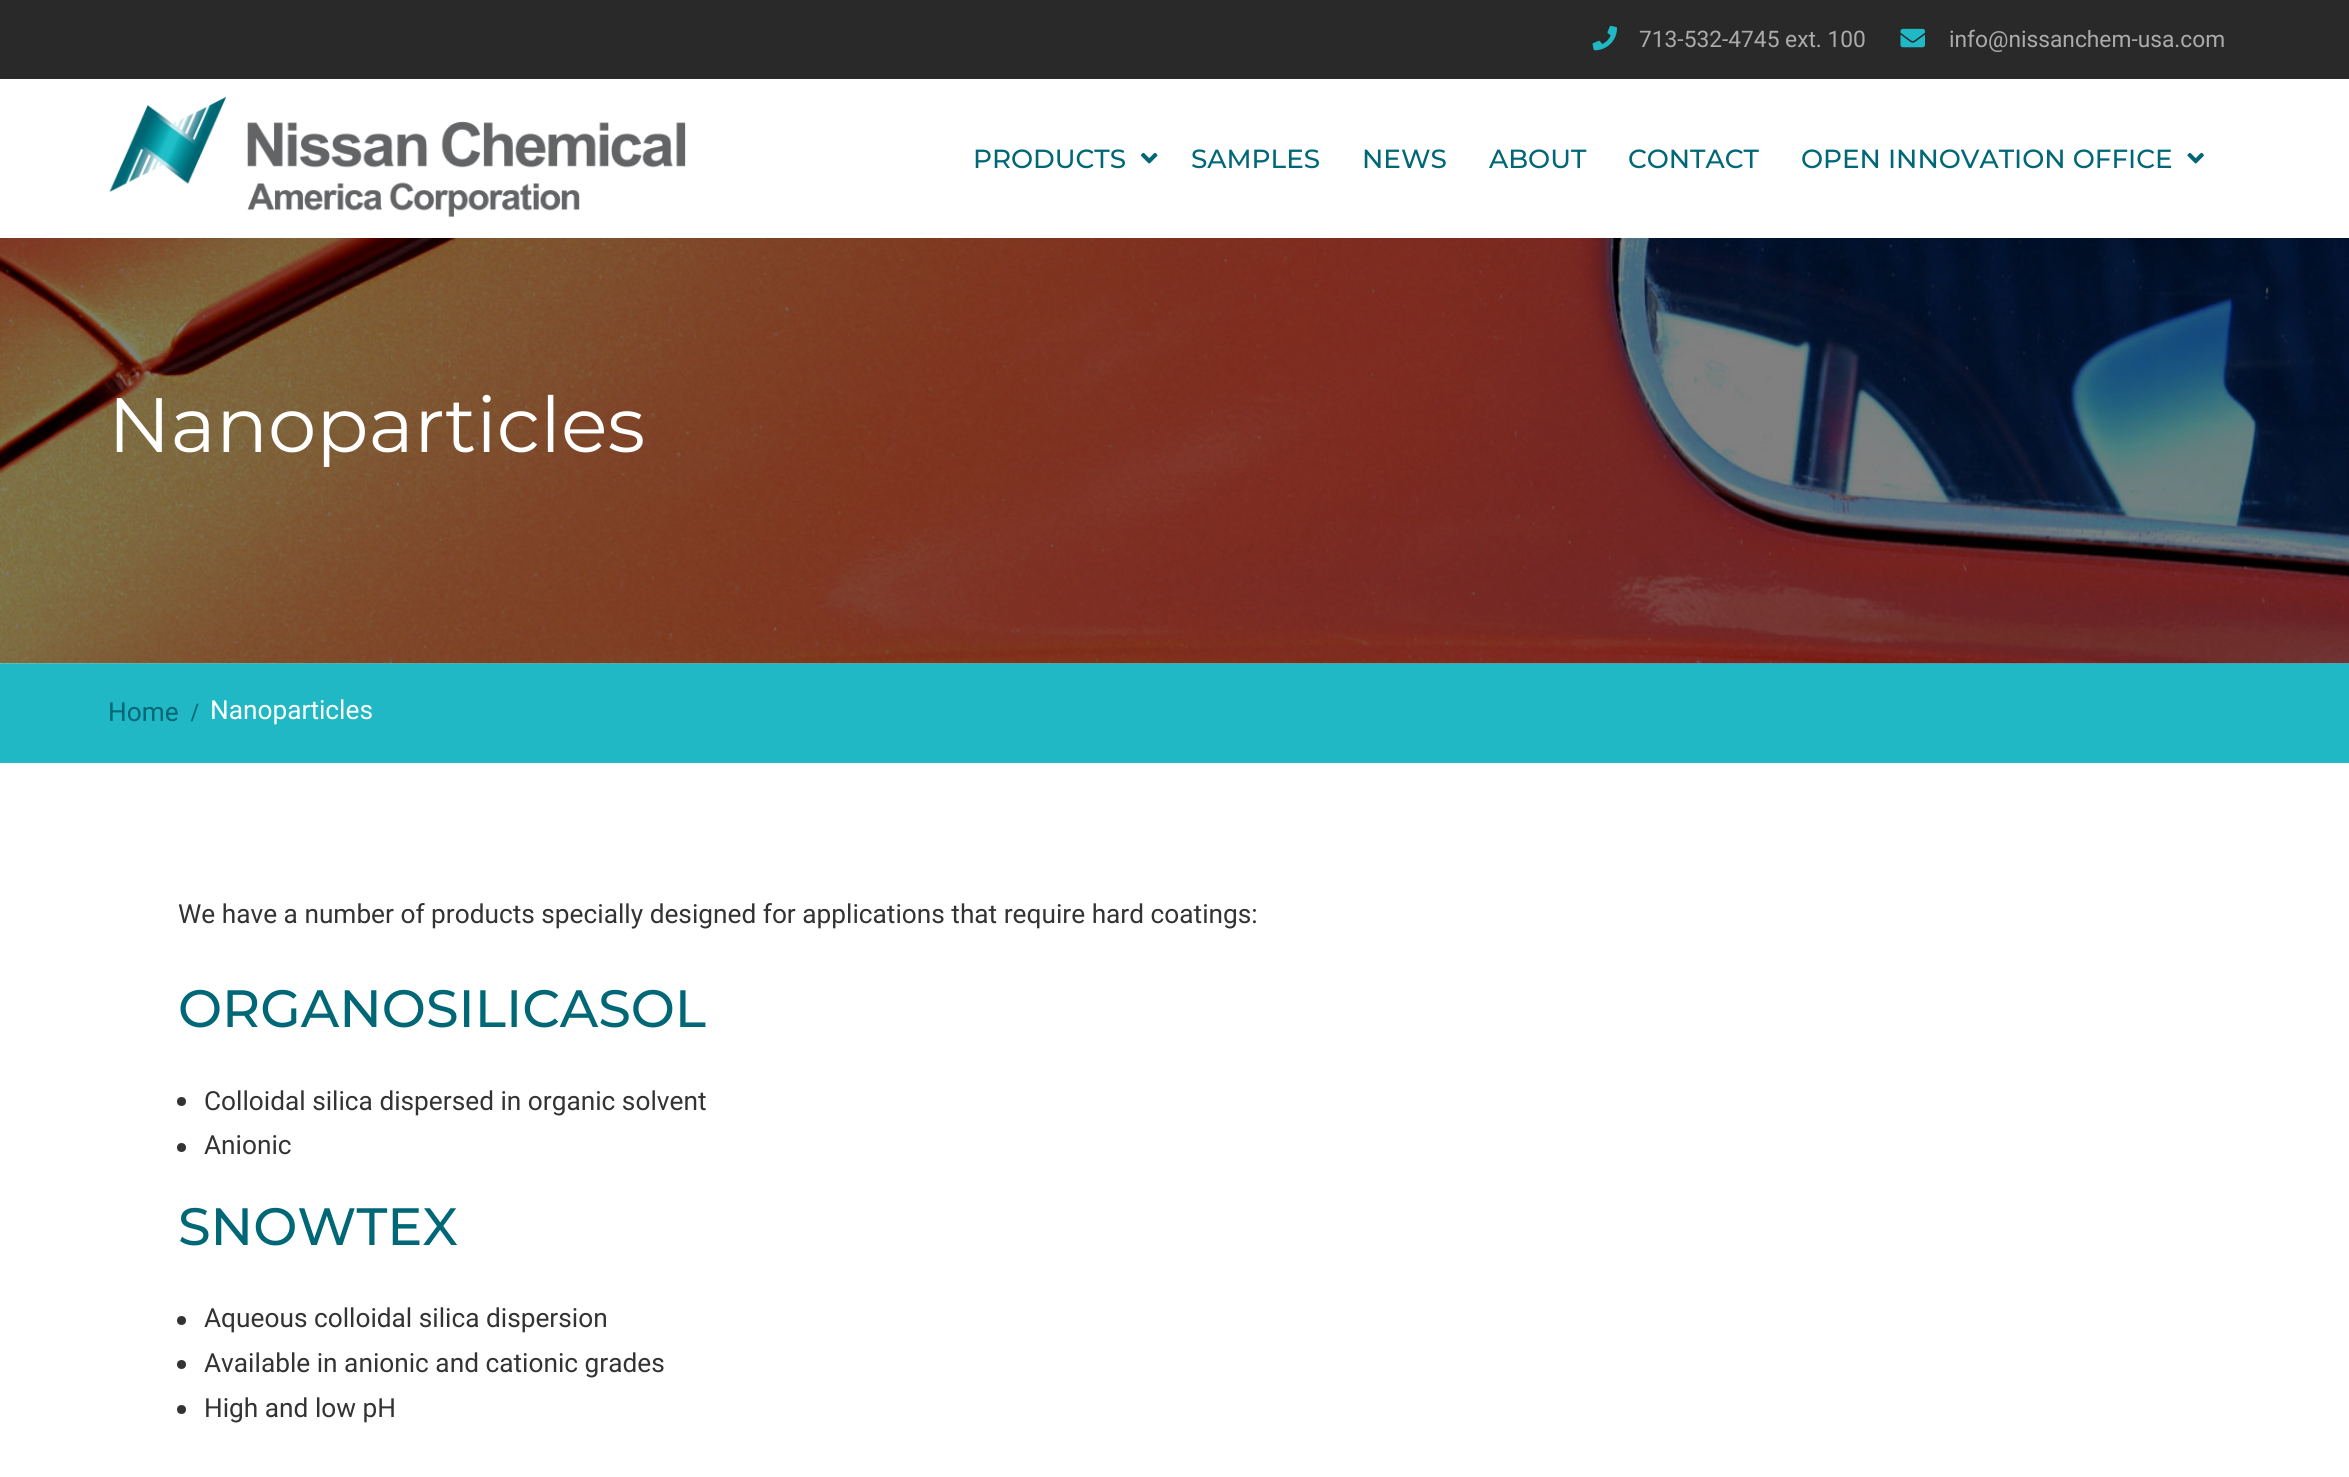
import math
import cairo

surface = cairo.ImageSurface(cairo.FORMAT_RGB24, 2349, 1477)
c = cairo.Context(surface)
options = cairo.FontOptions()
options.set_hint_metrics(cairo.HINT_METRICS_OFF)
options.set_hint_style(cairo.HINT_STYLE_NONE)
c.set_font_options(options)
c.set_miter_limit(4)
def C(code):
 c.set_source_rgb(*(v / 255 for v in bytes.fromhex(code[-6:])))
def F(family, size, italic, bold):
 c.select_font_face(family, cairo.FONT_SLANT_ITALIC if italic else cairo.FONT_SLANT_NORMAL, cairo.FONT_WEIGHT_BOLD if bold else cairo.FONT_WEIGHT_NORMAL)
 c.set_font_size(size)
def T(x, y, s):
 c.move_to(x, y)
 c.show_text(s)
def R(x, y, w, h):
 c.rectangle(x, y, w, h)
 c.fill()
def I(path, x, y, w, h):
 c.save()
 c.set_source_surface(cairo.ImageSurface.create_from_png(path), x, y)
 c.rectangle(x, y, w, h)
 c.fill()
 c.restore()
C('ffffff')
c.paint()
C('292929')
R(0,0,2349,79)
I('1.png',1592,25,25,26)
F('Roboto',22.75,0,0)
C('ababab')
T(1639,47,'713-532-4745 ext. 100')
I('2.png',1900,28,25,20)
T(1949,47,'info@nissanchem-usa.com')
I('3.png',109,96,577,121)
F('Montserrat Medium',26.25,0,0)
C('006777')
T(973,168,'PRODUCTS')
I('4.png',1141,152,17,12)
T(1191,168,'SAMPLES')
T(1362,168,'NEWS')
T(1489,168,'ABOUT')
T(1628,168,'CONTACT')
T(1801,168,'OPEN INNOVATION OFFICE')
I('5.png',2187,152,17,12)
C('21b8c5')
R(0,663,2349,100)
I('6.png',0,238,2349,426)
F('Montserrat',77,0,0)
C('ffffff')
T(108,452,'Nanoparticles')
F('Roboto',26.25,0,0)
C('006777')
T(108,721,'Home')
F('Liberation Serif',26.25,0,1)
T(191,721,'/')
F('Roboto',26.25,0,0)
C('ffffff')
T(210,719,'Nanoparticles')
C('333333')
T(178,923,'We have a number of products specially designed for applications that require hard coatings:')
F('Montserrat Medium',52.5,0,0)
C('006777')
T(178,1027,'ORGANOSILICASOL')
C('333333')
c.new_path()
c.arc(181.5,1101.5,4.5,0,2 * math.pi)
c.fill()
F('Roboto',26.25,0,0)
T(204,1110,'Colloidal silica dispersed in organic solvent')
c.new_path()
c.arc(181.5,1147.5,4.5,0,2 * math.pi)
c.fill()
T(204,1154,'Anionic')
F('Montserrat Medium',52.5,0,0)
C('006777')
T(178,1245,'SNOWTEX')
C('333333')
c.new_path()
c.arc(181.5,1320.5,4.5,0,2 * math.pi)
c.fill()
F('Roboto',26.25,0,0)
T(204,1327,'Aqueous colloidal silica dispersion')
c.new_path()
c.arc(181.5,1364.5,4.5,0,2 * math.pi)
c.fill()
T(204,1372,'Available in anionic and cationic grades')
c.new_path()
c.arc(181.5,1409.5,4.5,0,2 * math.pi)
c.fill()
T(204,1417,'High and low pH')
surface.write_to_png('o.png')
